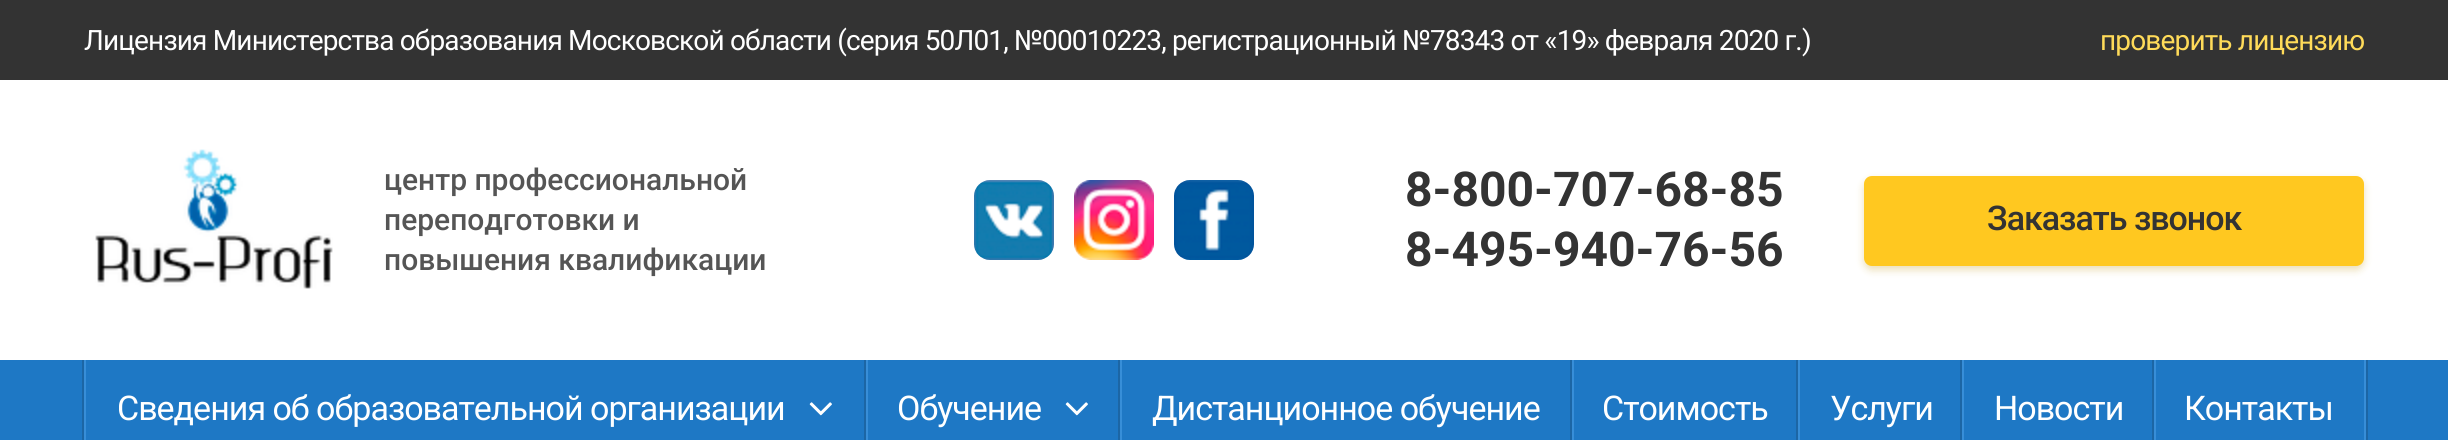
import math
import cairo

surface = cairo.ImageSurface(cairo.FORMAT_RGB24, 2448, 440)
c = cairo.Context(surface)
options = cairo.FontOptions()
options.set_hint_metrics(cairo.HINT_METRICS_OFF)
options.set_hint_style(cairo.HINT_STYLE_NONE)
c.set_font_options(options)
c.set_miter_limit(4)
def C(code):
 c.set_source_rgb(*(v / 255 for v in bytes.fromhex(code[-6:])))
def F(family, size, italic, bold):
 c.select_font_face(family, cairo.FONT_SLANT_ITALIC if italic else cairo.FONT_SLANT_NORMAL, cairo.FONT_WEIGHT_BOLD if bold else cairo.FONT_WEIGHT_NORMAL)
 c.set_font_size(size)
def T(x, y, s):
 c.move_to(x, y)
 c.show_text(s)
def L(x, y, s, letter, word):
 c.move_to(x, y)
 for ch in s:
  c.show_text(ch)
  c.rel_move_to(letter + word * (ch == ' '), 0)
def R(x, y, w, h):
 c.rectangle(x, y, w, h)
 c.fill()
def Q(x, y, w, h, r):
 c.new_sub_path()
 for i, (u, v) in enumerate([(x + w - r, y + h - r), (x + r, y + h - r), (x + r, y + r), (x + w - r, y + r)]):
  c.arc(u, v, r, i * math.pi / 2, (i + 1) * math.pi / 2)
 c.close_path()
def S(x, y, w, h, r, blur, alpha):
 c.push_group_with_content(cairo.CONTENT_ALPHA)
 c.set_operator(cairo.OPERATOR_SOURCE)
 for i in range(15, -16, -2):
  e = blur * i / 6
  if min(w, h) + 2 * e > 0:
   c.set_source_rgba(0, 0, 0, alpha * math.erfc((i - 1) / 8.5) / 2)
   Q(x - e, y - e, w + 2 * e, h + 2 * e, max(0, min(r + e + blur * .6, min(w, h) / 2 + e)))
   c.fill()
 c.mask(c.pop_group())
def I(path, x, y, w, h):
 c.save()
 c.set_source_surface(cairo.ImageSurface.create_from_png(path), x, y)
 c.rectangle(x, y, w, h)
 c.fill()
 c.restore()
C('ffffff')
c.paint()
C('333333')
R(0,0,2448,80)
F('Roboto',28,0,0)
C('ffffff')
L(84,50,'Лицензия Министерства образования Московской области (серия 50Л01, №00010223, регистрационный №78343 от «19» февраля 2020 г.)',-.84,0)
C('ffdb59')
L(2100,50,'проверить лицензию',-.84,0)
I('1.png',95,149,238,140)
F('Roboto Medium',30,0,0)
C('555555')
T(384,190,'центр профессиональной')
T(384,230,'переподготовки и')
T(384,270,'повышения квалификации')
I('2.png',974,180,80,80)
I('3.png',1074,180,80,80)
I('4.png',1174,180,80,80)
F('Roboto',48,0,1)
C('333333')
T(1405,206,'8-800-707-68-85')
T(1405,266,'8-495-940-76-56')
C('c1950e')
S(1864,180,500,90,8,4,.3)
C('ffc820')
Q(1864,176,500,90,8)
c.fill()
F('Roboto Medium',34,0,0)
C('333333')
L(1987,230,'Заказать звонок',-1,0)
C('1e78c5')
R(0,360,2448,80)
C('1c66a5')
R(82,360,2,80)
C('378ed8')
R(84,360,2,80)
F('Roboto',34,0,0)
C('ffffff')
L(117,420,'Сведения об образовательной организации',-1,0)
I('5.png',809,402,23,14)
C('1c66a5')
R(864,360,2,80)
C('378ed8')
R(866,360,2,80)
C('ffffff')
L(897,420,'Обучение',-1,0)
I('5.png',1065,402,23,14)
C('1c66a5')
R(1118,360,2,80)
C('378ed8')
R(1120,360,2,80)
C('ffffff')
L(1152,420,'Дистанционное обучение',-1,0)
C('1c66a5')
R(1570,360,2,80)
C('378ed8')
R(1572,360,2,80)
C('ffffff')
L(1602,420,'Стоимость',-1,0)
C('1c66a5')
R(1796,360,2,80)
C('378ed8')
R(1798,360,2,80)
C('ffffff')
L(1830,420,'Услуги',-1,0)
C('1c66a5')
R(1960,360,2,80)
C('378ed8')
R(1962,360,2,80)
C('ffffff')
L(1994,420,'Новости',-1,0)
C('1c66a5')
R(2152,360,2,80)
C('378ed8')
R(2154,360,2,80)
C('ffffff')
L(2184,420,'Контакты',-1,0)
C('378ed8')
R(2364,360,2,80)
C('1c66a5')
R(2366,360,2,80)
surface.write_to_png('o.png')
